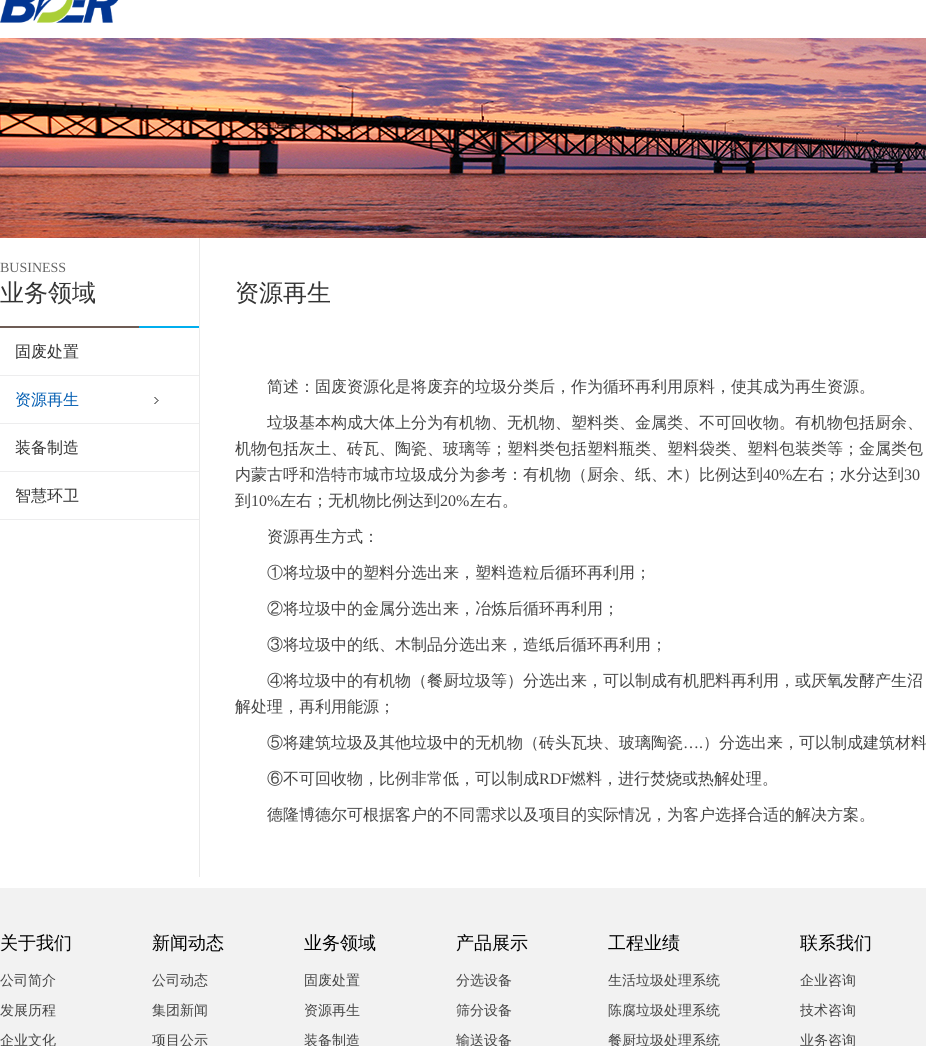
import math
import cairo

surface = cairo.ImageSurface(cairo.FORMAT_RGB24, 926, 1046)
c = cairo.Context(surface)
options = cairo.FontOptions()
options.set_hint_metrics(cairo.HINT_METRICS_OFF)
options.set_hint_style(cairo.HINT_STYLE_NONE)
c.set_font_options(options)
c.set_miter_limit(4)
def C(code):
 c.set_source_rgb(*(v / 255 for v in bytes.fromhex(code[-6:])))
def F(family, size, italic, bold):
 c.select_font_face(family, cairo.FONT_SLANT_ITALIC if italic else cairo.FONT_SLANT_NORMAL, cairo.FONT_WEIGHT_BOLD if bold else cairo.FONT_WEIGHT_NORMAL)
 c.set_font_size(size)
def T(x, y, s):
 c.move_to(x, y)
 c.show_text(s)
def R(x, y, w, h):
 c.rectangle(x, y, w, h)
 c.fill()
def I(path, x, y, w, h):
 c.save()
 c.set_source_surface(cairo.ImageSurface.create_from_png(path), x, y)
 c.rectangle(x, y, w, h)
 c.fill()
 c.restore()
C('ffffff')
c.paint()
I('1.png',0,0,119,23)
I('2.png',0,38,926,200)
C('eaeaea')
R(199,238,1,639)
I('3.png',0,326,199,2)
F('Liberation Serif',14,0,0)
C('666666')
T(0,272,'BUSINESS')
F('WenQuanYi Zen Hei Medium',24,0,0)
C('333333')
T(0,301,'业务领域')
C('ededee')
R(0,375,199,1)
F('WenQuanYi Zen Hei Medium',16,0,0)
C('333333')
T(15,357,'固废处置')
I('4.png',154,397,5,7)
C('ededee')
R(0,423,199,1)
C('015db2')
T(15,405,'资源再生')
C('ededee')
R(0,471,199,1)
C('333333')
T(15,453,'装备制造')
C('ededee')
R(0,519,199,1)
C('333333')
T(15,501,'智慧环卫')
F('WenQuanYi Zen Hei Medium',24,0,0)
T(235,301,'资源再生')
F('WenQuanYi Zen Hei Medium',16,0,0)
C('444444')
T(267,392,'简述：固废资源化是将废弃的垃圾分类后，作为循环再利用原料，使其成为再生资源。')
T(267,428,'垃圾基本构成大体上分为有机物、无机物、塑料类、金属类、不可回收物。有机物包括厨余、')
T(235,454,'机物包括灰土、砖瓦、陶瓷、玻璃等；塑料类包括塑料瓶类、塑料袋类、塑料包装类等；金属类包')
T(235,480,'内蒙古呼和浩特市城市垃圾成分为参考：有机物（厨余、纸、木）比例达到')
F('Liberation Serif',16,0,0)
T(763,480,'40%')
F('WenQuanYi Zen Hei Medium',16,0,0)
T(792,480,'左右；水分达到')
F('Liberation Serif',16,0,0)
T(904,480,'30')
F('WenQuanYi Zen Hei Medium',16,0,0)
T(235,506,'到')
F('Liberation Serif',16,0,0)
T(251,506,'10%')
F('WenQuanYi Zen Hei Medium',16,0,0)
T(280,506,'左右；无机物比例达到')
F('Liberation Serif',16,0,0)
T(440,506,'20%')
F('WenQuanYi Zen Hei Medium',16,0,0)
T(470,506,'左右。')
T(267,542,'资源再生方式：')
T(267,578,'①将垃圾中的塑料分选出来，塑料造粒后循环再利用；')
T(267,614,'②将垃圾中的金属分选出来，冶炼后循环再利用；')
T(267,650,'③将垃圾中的纸、木制品分选出来，造纸后循环再利用；')
T(267,686,'④将垃圾中的有机物（餐厨垃圾等）分选出来，可以制成有机肥料再利用，或厌氧发酵产生沼')
T(235,712,'解处理，再利用能源；')
T(267,748,'⑤将建筑垃圾及其他垃圾中的无机物（砖头瓦块、玻璃陶瓷')
F('Liberation Serif',16,0,0)
T(683,748,'….')
F('WenQuanYi Zen Hei Medium',16,0,0)
T(703,748,'）分选出来，可以制成建筑材料')
T(267,784,'⑥不可回收物，比例非常低，可以制成')
F('Liberation Serif',16,0,0)
T(539,784,'RDF')
F('WenQuanYi Zen Hei Medium',16,0,0)
T(570,784,'燃料，进行焚烧或热解处理。')
T(267,820,'德隆博德尔可根据客户的不同需求以及项目的实际情况，为客户选择合适的解决方案。')
C('f2f2f2')
R(0,888,926,158)
F('WenQuanYi Zen Hei Medium',18,0,0)
C('000000')
T(0,949,'关于我们')
F('WenQuanYi Zen Hei Medium',14,0,0)
C('444444')
T(0,985,'公司简介')
T(0,1015,'发展历程')
T(0,1045,'企业文化')
F('WenQuanYi Zen Hei Medium',18,0,0)
C('000000')
T(152,949,'新闻动态')
F('WenQuanYi Zen Hei Medium',14,0,0)
C('444444')
T(152,985,'公司动态')
T(152,1015,'集团新闻')
T(152,1045,'项目公示')
F('WenQuanYi Zen Hei Medium',18,0,0)
C('000000')
T(304,949,'业务领域')
F('WenQuanYi Zen Hei Medium',14,0,0)
C('444444')
T(304,985,'固废处置')
T(304,1015,'资源再生')
T(304,1045,'装备制造')
F('WenQuanYi Zen Hei Medium',18,0,0)
C('000000')
T(456,949,'产品展示')
F('WenQuanYi Zen Hei Medium',14,0,0)
C('444444')
T(456,985,'分选设备')
T(456,1015,'筛分设备')
T(456,1045,'输送设备')
F('WenQuanYi Zen Hei Medium',18,0,0)
C('000000')
T(608,949,'工程业绩')
F('WenQuanYi Zen Hei Medium',14,0,0)
C('444444')
T(608,985,'生活垃圾处理系统')
T(608,1015,'陈腐垃圾处理系统')
T(608,1045,'餐厨垃圾处理系统')
F('WenQuanYi Zen Hei Medium',18,0,0)
C('000000')
T(800,949,'联系我们')
F('WenQuanYi Zen Hei Medium',14,0,0)
C('444444')
T(800,985,'企业咨询')
T(800,1015,'技术咨询')
T(800,1045,'业务咨询')
surface.write_to_png('o.png')
